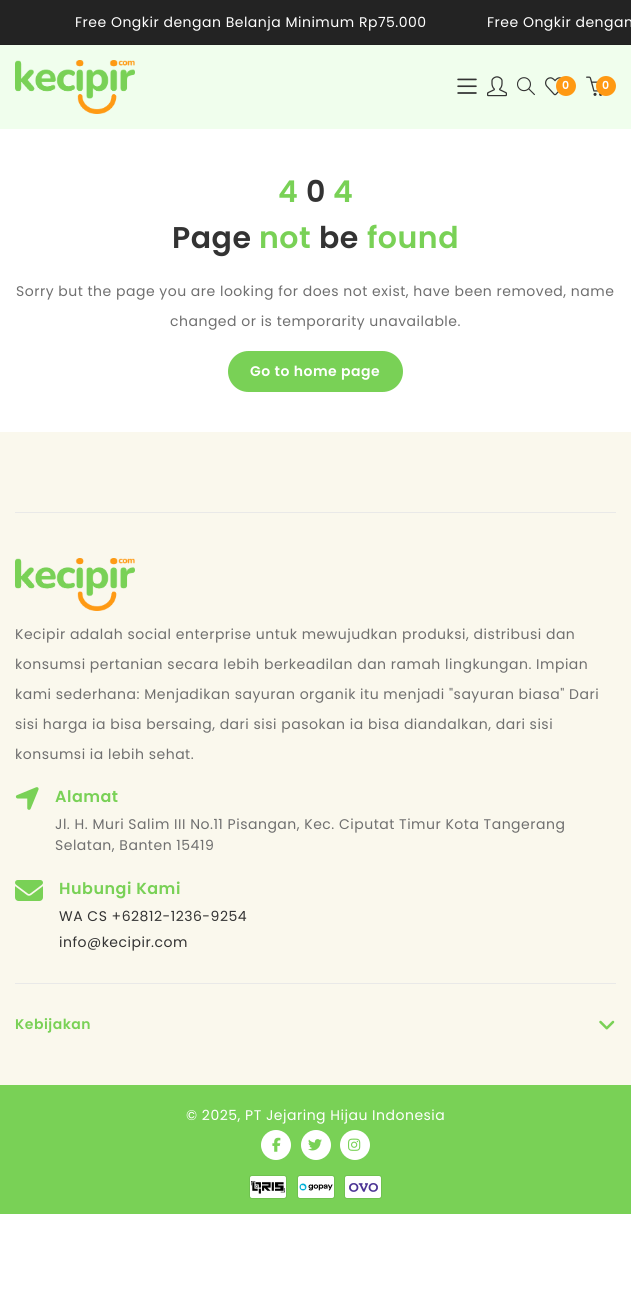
import math
import cairo

surface = cairo.ImageSurface(cairo.FORMAT_RGB24, 631, 1305)
c = cairo.Context(surface)
options = cairo.FontOptions()
options.set_hint_metrics(cairo.HINT_METRICS_OFF)
options.set_hint_style(cairo.HINT_STYLE_NONE)
c.set_font_options(options)
c.set_miter_limit(4)
def C(code):
 c.set_source_rgb(*(v / 255 for v in bytes.fromhex(code[-6:])))
def F(family, size, italic, bold):
 c.select_font_face(family, cairo.FONT_SLANT_ITALIC if italic else cairo.FONT_SLANT_NORMAL, cairo.FONT_WEIGHT_BOLD if bold else cairo.FONT_WEIGHT_NORMAL)
 c.set_font_size(size)
def L(x, y, s, letter, word):
 c.move_to(x, y)
 for ch in s:
  c.show_text(ch)
  c.rel_move_to(letter + word * (ch == ' '), 0)
def R(x, y, w, h):
 c.rectangle(x, y, w, h)
 c.fill()
def Q(x, y, w, h, r):
 c.new_sub_path()
 for i, (u, v) in enumerate([(x + w - r, y + h - r), (x + r, y + h - r), (x + r, y + r), (x + w - r, y + r)]):
  c.arc(u, v, r, i * math.pi / 2, (i + 1) * math.pi / 2)
 c.close_path()
def I(path, x, y, w, h):
 c.save()
 c.set_source_surface(cairo.ImageSurface.create_from_png(path), x, y)
 c.rectangle(x, y, w, h)
 c.fill()
 c.restore()
C('ffffff')
c.paint()
C('232323')
R(0,0,631,44)
C('202020')
R(0,44,631,1)
F('Poppins',14,0,0)
C('ffffff')
L(75,27,'Free Ongkir dengan Belanja Minimum Rp75.000',.5,0)
L(487,27,'Free Ongkir dengan',.5,0)
C('f0feed')
R(0,45,631,84)
I('1.png',15,60,120,54)
I('2.png',457,78,20,16)
I('3.png',487,76,20,21)
I('4.png',517,77,18,19)
I('5.png',545,77,17,19)
C('ff9913')
c.arc(566,86,10,0,2 * math.pi)
c.fill()
F('Poppins SemiBold',11,0,0)
C('ffffff')
L(562,89,'0',.5,0)
I('6.png',586,76,16,20)
C('ff9913')
c.arc(606,86,10,0,2 * math.pi)
c.fill()
C('ffffff')
L(602,89,'0',.5,0)
F('Poppins SemiBold',30,0,0)
C('79d156')
L(278,202,'4',.5,0)
C('333333')
L(306,202,'0',.5,0)
C('79d156')
L(333,202,'4',.5,0)
C('333333')
L(172,248,'Page',.5,0)
C('79d156')
L(259,248,'not',.5,0)
C('333333')
L(319,248,'be',.5,0)
C('79d156')
L(367,248,'found',.5,0)
F('Poppins',14,0,0)
C('6f6f6f')
L(16,296,'Sorry but the page you are looking for does not exist, have been removed, name',.5,0)
L(170,326,'changed or is temporarity unavailable.',.5,0)
C('79d156')
Q(229,352,173,39,19.5)
c.fill_preserve()
c.stroke()
F('Poppins SemiBold',14,0,0)
C('ffffff')
L(250,376,'Go to home page',.5,0)
C('faf8ed')
R(0,432,631,653)
C('e9e9e8')
R(15,512,601,1)
I('7.png',15,558,120,53)
F('Poppins',14,0,0)
C('6f6f6f')
L(15,639,'Kecipir adalah social enterprise untuk mewujudkan produksi, distribusi dan',.5,0)
L(15,669,'konsumsi pertanian secara lebih berkeadilan dan ramah lingkungan. Impian',.5,0)
L(15,699,'kami sederhana: Menjadikan sayuran organik itu menjadi "sayuran biasa" Dari',.5,0)
L(15,729,'sisi harga ia bisa bersaing, dari sisi pasokan ia bisa diandalkan, dari sisi',.5,0)
L(15,759,'konsumsi ia lebih sehat.',.5,0)
I('8.png',15,787,24,23)
F('Poppins SemiBold',16,0,0)
C('79d156')
L(55,802,'Alamat',.5,0)
F('Poppins',14,0,0)
C('6f6f6f')
L(55,829,'Jl. H. Muri Salim III No.11 Pisangan, Kec. Ciputat Timur Kota Tangerang',.5,0)
L(55,850,'Selatan, Banten 15419',.5,0)
I('9.png',15,880,28,21)
F('Poppins SemiBold',16,0,0)
C('79d156')
L(59,894,'Hubungi Kami',.5,0)
F('Poppins',14,0,0)
C('333333')
L(59,921,'WA CS +62812-1236-9254',.5,0)
L(59,947,'info@kecipir.com',.5,0)
C('e9e9e8')
R(15,983,601,1)
F('Poppins SemiBold',14,0,0)
C('79d156')
L(15,1029,'Kebijakan',.5,0)
I('10.png',599,1020,16,10)
R(0,1085,631,129)
F('Poppins',14,0,0)
C('ffffff')
L(186,1120,'© 2025, PT Jejaring Hijau Indonesia',.5,0)
c.new_path()
c.arc(276,1145,15,0,2 * math.pi)
c.fill()
I('11.png',272,1137,9,15)
c.arc(316,1145,15,0,2 * math.pi)
c.fill()
I('12.png',308,1139,14,12)
c.arc(355,1145,15,0,2 * math.pi)
c.fill()
I('13.png',348,1138,13,13)
I('14.png',249,1175,38,24)
I('15.png',297,1175,38,24)
I('16.png',344,1175,38,24)
surface.write_to_png('o.png')
